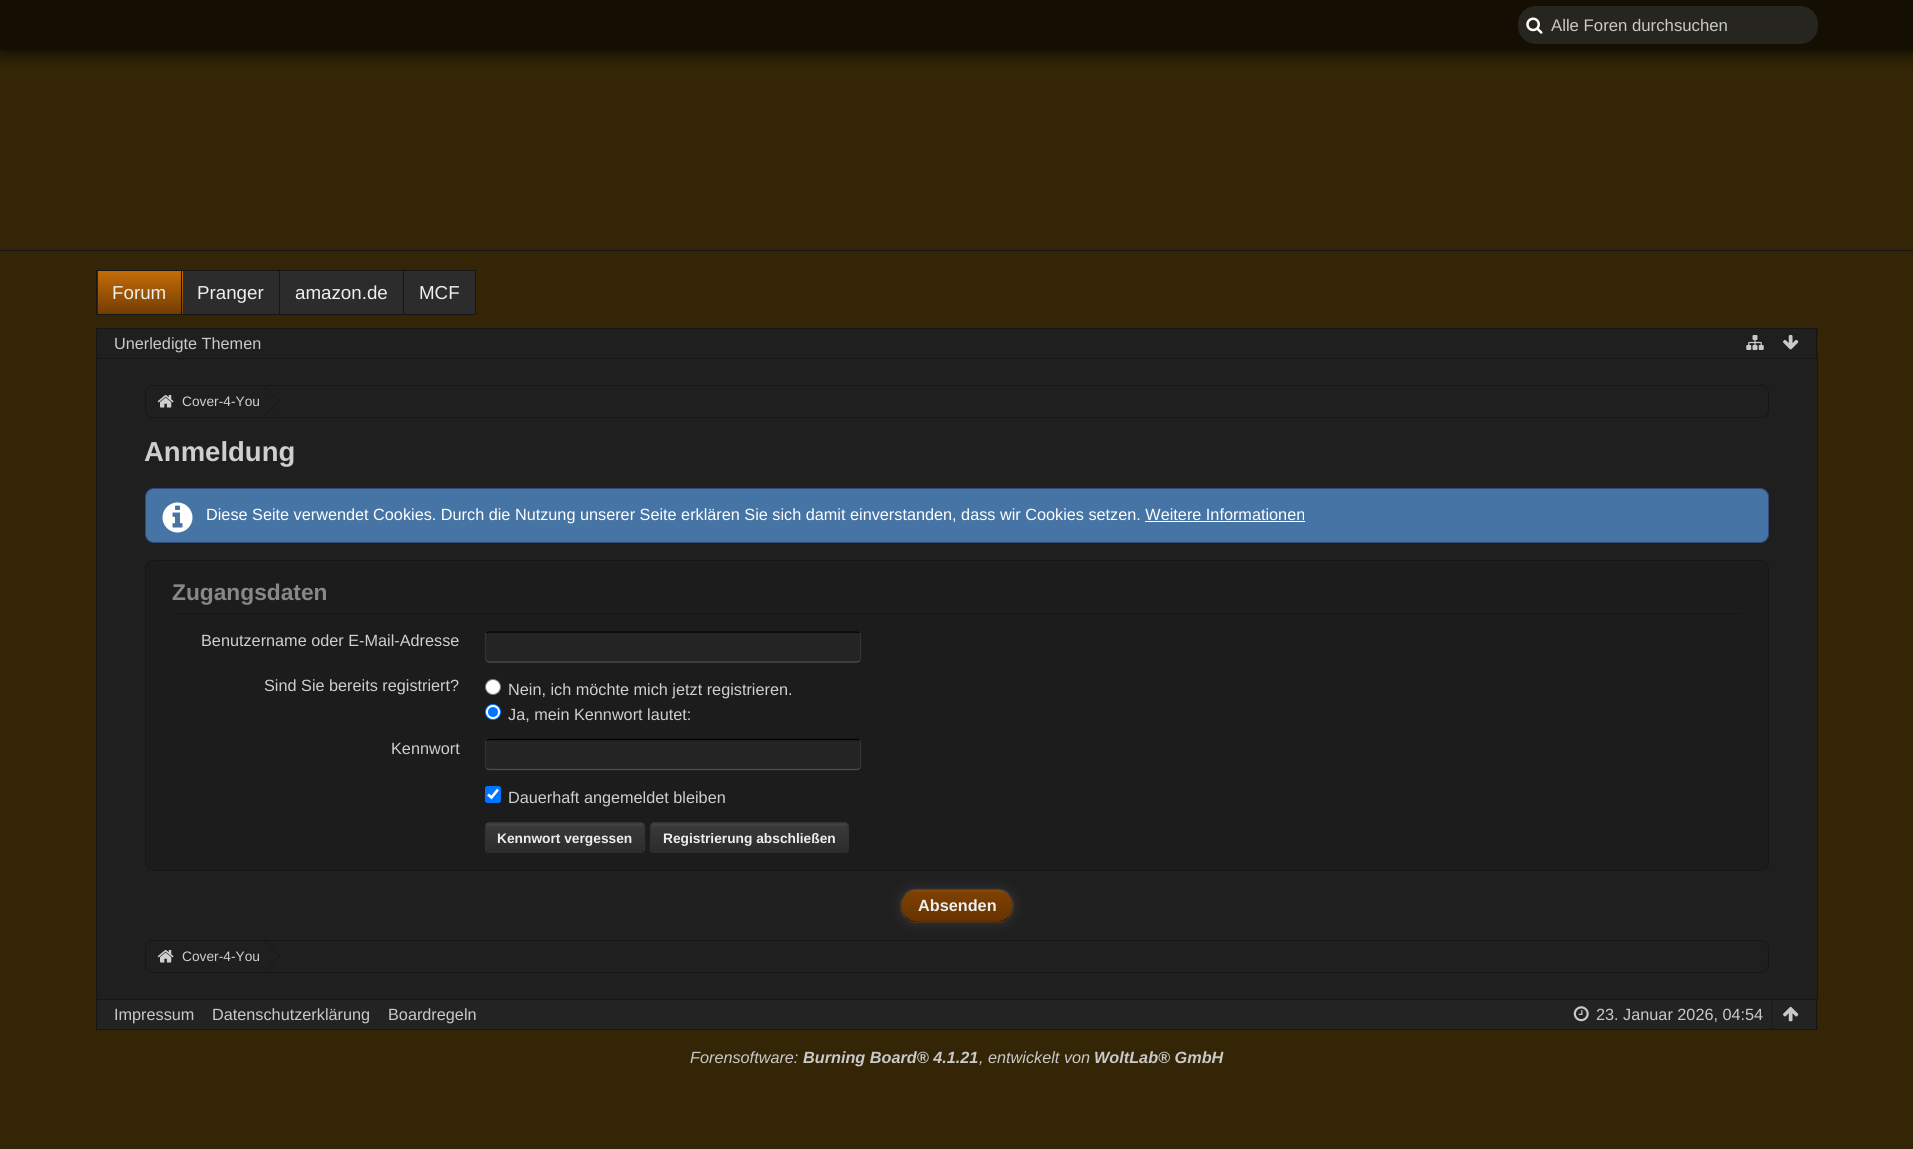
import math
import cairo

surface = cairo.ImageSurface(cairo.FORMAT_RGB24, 1913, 1149)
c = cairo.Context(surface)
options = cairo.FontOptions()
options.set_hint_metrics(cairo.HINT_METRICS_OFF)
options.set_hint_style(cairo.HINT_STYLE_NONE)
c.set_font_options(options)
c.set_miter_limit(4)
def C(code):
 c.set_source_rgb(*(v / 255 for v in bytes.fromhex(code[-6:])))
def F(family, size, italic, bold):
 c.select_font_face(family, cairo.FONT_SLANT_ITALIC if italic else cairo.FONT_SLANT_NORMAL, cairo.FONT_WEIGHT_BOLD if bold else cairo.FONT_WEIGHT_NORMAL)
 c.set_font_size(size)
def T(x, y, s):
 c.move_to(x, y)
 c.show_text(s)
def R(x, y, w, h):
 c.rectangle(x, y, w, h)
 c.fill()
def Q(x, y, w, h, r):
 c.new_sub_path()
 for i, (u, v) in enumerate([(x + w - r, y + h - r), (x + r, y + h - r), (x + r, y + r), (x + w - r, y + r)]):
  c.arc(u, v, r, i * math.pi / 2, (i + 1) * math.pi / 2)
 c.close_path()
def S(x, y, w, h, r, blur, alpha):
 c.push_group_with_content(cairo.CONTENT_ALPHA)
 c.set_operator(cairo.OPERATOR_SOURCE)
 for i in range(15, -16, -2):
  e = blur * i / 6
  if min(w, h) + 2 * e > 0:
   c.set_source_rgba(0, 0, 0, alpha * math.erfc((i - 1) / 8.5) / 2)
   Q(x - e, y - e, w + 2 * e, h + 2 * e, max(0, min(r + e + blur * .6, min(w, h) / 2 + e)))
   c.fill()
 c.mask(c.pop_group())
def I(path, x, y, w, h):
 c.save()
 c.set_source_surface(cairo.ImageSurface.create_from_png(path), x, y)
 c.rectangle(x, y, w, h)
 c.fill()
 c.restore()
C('332506')
c.paint()
C('000000')
S(0,0,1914,50,0,9.5,1)
C('140f02')
R(0,0,1913,50)
C('27251f')
Q(1518,6,300,38,18)
c.fill()
I('1.png',1526,17,17,17)
F('Liberation Sans',16.75,0,0)
C('c9c9c9')
T(1551,31,'Alle Foren durchsuchen')
C('161616')
R(0,250,1913,1)
R(96,270,380,1)
R(96,314,308,1)
R(96,270,1,45)
gradient = cairo.LinearGradient(139,271,139,314)
gradient.add_color_stop_rgba(0,0.769,0.424,0.031,1)
gradient.add_color_stop_rgba(1,0.451,0.239,0.008,1)
c.set_source(gradient)
R(98,271,85,43)
C('161616')
R(181,271,1,43)
F('Liberation Sans',18.75,0,0)
C('eeeeee')
T(112,299,'Forum')
C('2c2c2c')
R(183,271,96,43)
C('161616')
R(279,271,1,43)
C('eeeeee')
T(197,299,'Pranger')
C('2c2c2c')
R(280,271,123,43)
C('161616')
R(403,271,1,43)
C('eeeeee')
T(295,299,'amazon.de')
C('161616')
R(475,270,1,45)
R(404,314,72,1)
C('2c2c2c')
R(404,271,71,43)
C('eeeeee')
T(419,299,'MCF')
C('1f1f1f')
R(97,329,1721,29)
C('161616')
R(96,328,1722,1)
R(1816,328,1,30)
R(96,328,1,30)
F('Liberation Sans',16.25,0,0)
C('c9c9c9')
T(114,349,'Unerledigte Themen')
I('2.png',1746,335,18,15)
I('3.png',1783,335,16,15)
C('1f1f1f')
c.rectangle(96.5,358.5,1721,641)
c.fill_preserve()
C('161616')
c.set_line_width(1)
c.stroke()
Q(145.5,385.5,1623,32,7.5)
c.stroke()
I('4.png',157,395,17,13)
F('Liberation Sans',13.75,0,0)
C('cfcfcf')
T(182,406,'Cover-4-You')
C('161616')
c.new_path()
c.move_to(264.5,386)
c.line_to(280,401)
c.line_to(265,416)
c.line_to(261,416)
c.line_to(261,386)
c.close_path()
c.fill()
C('1f1f1f')
c.new_path()
c.move_to(263.5,386)
c.line_to(279,401)
c.line_to(264,416)
c.line_to(260,416)
c.line_to(260,386)
c.close_path()
c.fill()
F('Liberation Sans',27.5,0,1)
C('cfcfcf')
T(144,461,'Anmeldung')
C('4674a4')
Q(145.5,488.5,1623,54,8.5)
c.fill_preserve()
C('304d77')
c.stroke()
I('5.png',162,502,31,31)
F('Liberation Sans',16.25,0,0)
C('ffffff')
T(206,520,'Diese Seite verwendet Cookies. Durch die Nutzung unserer Seite erklären Sie sich damit einverstanden, dass wir Cookies setzen. Weitere Informationen')
R(1145,521,160,1)
C('1c1c1c')
Q(145.5,560.5,1623,310,8.5)
c.fill_preserve()
C('161616')
c.stroke()
R(173,613,1568,1)
F('Liberation Sans',22.75,0,1)
C('888888')
T(172,600,'Zugangsdaten')
F('Liberation Sans',16.25,0,0)
C('cfcfcf')
T(201,646,'Benutzername oder E-Mail-Adresse')
C('242424')
Q(485,631,376,32,4)
c.fill()
c.new_path()
c.move_to(486.5,633)
c.line_to(489,632)
c.line_to(857.5,632)
c.line_to(859.5,633)
C('000000')
c.set_line_width(1.2)
c.stroke()
c.new_path()
c.move_to(859.5,633)
c.curve_to(860.5,633.5,860.5,634,860.5,635)
c.line_to(860.5,659)
c.curve_to(860.5,659.5,860.5,660.5,859.5,661)
C('333333')
c.stroke()
c.new_path()
c.move_to(859.5,661)
c.line_to(857.5,662)
c.line_to(489,662)
c.line_to(486.5,661)
C('4d4d4d')
c.stroke()
c.new_path()
c.move_to(486.5,661)
c.curve_to(486,660.5,485.5,659.5,485.5,659)
c.line_to(485.5,635)
c.curve_to(485.5,634,486,633.5,486.5,633)
C('333333')
c.stroke()
C('cfcfcf')
T(264,691,'Sind Sie bereits registriert?')
C('ffffff')
c.new_path()
c.arc(493,687,7.5,0,2 * math.pi)
c.fill_preserve()
C('767676')
c.set_line_width(1)
c.stroke()
C('cfcfcf')
T(508,695,'Nein, ich möchte mich jetzt registrieren.')
C('ffffff')
c.new_path()
c.arc(493,712,7.5,0,2 * math.pi)
c.fill_preserve()
C('0075ff')
c.stroke()
c.arc(493,712,5,0,2 * math.pi)
c.fill()
C('cfcfcf')
T(508,720,'Ja, mein Kennwort lautet:')
T(391,754,'Kennwort')
C('242424')
Q(485,739,376,31,4)
c.fill()
c.new_path()
c.move_to(486.5,740.5)
c.line_to(489,739.5)
c.line_to(857.5,739.5)
c.line_to(859.5,740.5)
C('000000')
c.set_line_width(1.2)
c.stroke()
c.new_path()
c.move_to(859.5,740.5)
c.curve_to(860.5,741,860.5,741.5,860.5,742.5)
c.line_to(860.5,766)
c.curve_to(860.5,767,860.5,768,859.5,768.5)
C('333333')
c.stroke()
c.new_path()
c.move_to(859.5,768.5)
c.line_to(857.5,769.5)
c.line_to(489,769.5)
c.line_to(486.5,768.5)
C('4d4d4d')
c.stroke()
c.new_path()
c.move_to(486.5,768.5)
c.curve_to(486,768,485.5,767,485.5,766)
c.line_to(485.5,742.5)
c.curve_to(485.5,741.5,486,741,486.5,740.5)
C('333333')
c.stroke()
C('0075ff')
Q(485,786,16,17,2.5)
c.fill()
c.new_path()
c.move_to(488,794.5)
c.line_to(491.5,797.5)
c.line_to(498,789.5)
C('ffffff')
c.set_line_width(2.6)
c.stroke()
C('cfcfcf')
T(508,803,'Dauerhaft angemeldet bleiben')
c.save()
Q(485,823,160,30,4)
c.clip()
gradient = cairo.LinearGradient(565,796,565,824)
gradient.add_color_stop_rgba(0,0.275,0.275,0.275,1)
gradient.add_color_stop_rgba(.09,0.224,0.224,0.224,1)
gradient.add_color_stop_rgba(1,0.173,0.173,0.173,1)
c.set_source(gradient)
R(485,823,160,1)
gradient = cairo.LinearGradient(565,824,565,851)
gradient.add_color_stop_rgba(0,0.275,0.275,0.275,1)
gradient.add_color_stop_rgba(.09,0.224,0.224,0.224,1)
gradient.add_color_stop_rgba(1,0.173,0.173,0.173,1)
c.set_source(gradient)
R(485,824,160,27)
gradient = cairo.LinearGradient(565,851,565,879)
gradient.add_color_stop_rgba(0,0.275,0.275,0.275,1)
gradient.add_color_stop_rgba(.09,0.224,0.224,0.224,1)
gradient.add_color_stop_rgba(1,0.173,0.173,0.173,1)
c.set_source(gradient)
R(485,851,160,2)
c.restore()
c.new_path()
c.move_to(486.5,824)
c.line_to(488.5,823)
c.line_to(616,823)
c.line_to(641,823)
c.line_to(643.5,824)
C('454545')
c.set_line_width(1.2)
c.stroke()
c.new_path()
c.move_to(643.5,824)
c.curve_to(644,824.5,644.5,825.5,644.5,826)
c.line_to(644.5,849)
c.curve_to(644.5,849.5,644,850.5,643.5,851)
C('333333')
c.stroke()
c.new_path()
c.move_to(643.5,851)
c.line_to(641,852)
c.line_to(488.5,852)
c.line_to(486.5,851)
C('212121')
c.stroke()
c.new_path()
c.move_to(486.5,851)
c.curve_to(486,850.5,485.5,849.5,485.5,849)
c.line_to(485.5,826)
c.curve_to(485.5,825.5,486,824.5,486.5,824)
C('333333')
c.stroke()
F('Liberation Sans',13.75,0,1)
C('eeeeee')
T(497,843,'Kennwort vergessen')
c.save()
Q(650,823,199,30,4)
c.clip()
gradient = cairo.LinearGradient(749,796,749,824)
gradient.add_color_stop_rgba(0,0.275,0.275,0.275,1)
gradient.add_color_stop_rgba(.09,0.224,0.224,0.224,1)
gradient.add_color_stop_rgba(1,0.173,0.173,0.173,1)
c.set_source(gradient)
R(650,823,199,1)
gradient = cairo.LinearGradient(749,824,749,851)
gradient.add_color_stop_rgba(0,0.275,0.275,0.275,1)
gradient.add_color_stop_rgba(.09,0.224,0.224,0.224,1)
gradient.add_color_stop_rgba(1,0.173,0.173,0.173,1)
c.set_source(gradient)
R(650,824,199,27)
gradient = cairo.LinearGradient(749,851,749,879)
gradient.add_color_stop_rgba(0,0.275,0.275,0.275,1)
gradient.add_color_stop_rgba(.09,0.224,0.224,0.224,1)
gradient.add_color_stop_rgba(1,0.173,0.173,0.173,1)
c.set_source(gradient)
R(650,851,199,2)
c.restore()
c.new_path()
c.move_to(651.5,824)
c.line_to(654,823)
c.line_to(845,823)
c.line_to(847,824)
C('454545')
c.stroke()
c.new_path()
c.move_to(847,824)
c.curve_to(848,824.5,848,825.5,848,826)
c.line_to(848,849)
c.curve_to(848,849.5,848,850.5,847,851)
C('333333')
c.stroke()
c.new_path()
c.move_to(847,851)
c.line_to(845,852)
c.line_to(654,852)
c.line_to(651.5,851)
C('212121')
c.stroke()
c.new_path()
c.move_to(651.5,851)
c.curve_to(651,850.5,650.5,849.5,650.5,849)
c.line_to(650.5,826)
c.curve_to(650.5,825.5,651,824.5,651.5,824)
C('333333')
c.stroke()
C('eeeeee')
T(663,843,'Registrierung abschließen')
C('333333')
S(900,889,114,34,17,6,1)
c.save()
Q(900,889,114,34,17)
c.clip()
gradient = cairo.LinearGradient(957,890,957,921)
gradient.add_color_stop_rgba(0,0.596,0.302,0.004,1)
gradient.add_color_stop_rgba(.08,0.494,0.251,0.004,1)
gradient.add_color_stop_rgba(1,0.396,0.2,0.004,1)
c.set_source(gradient)
R(900,890,114,31)
gradient = cairo.LinearGradient(957,921,957,953)
gradient.add_color_stop_rgba(0,0.596,0.302,0.004,1)
gradient.add_color_stop_rgba(.08,0.494,0.251,0.004,1)
gradient.add_color_stop_rgba(1,0.396,0.2,0.004,1)
c.set_source(gradient)
R(909,921,96,2)
c.restore()
c.new_path()
c.move_to(905.5,894)
c.curve_to(908.5,891,912.5,889.5,917,889.5)
c.line_to(997,889.5)
c.curve_to(1001,889.5,1005.5,891,1008.5,894)
C('454545')
c.stroke()
c.new_path()
c.move_to(1008.5,894)
c.curve_to(1014.5,900.5,1014.5,911,1008.5,917)
C('333333')
c.stroke()
c.new_path()
c.move_to(1008.5,917)
c.curve_to(1005.5,920,1001,922,997,922)
c.line_to(917,922)
c.curve_to(912.5,922,908.5,920,905.5,917)
C('212121')
c.stroke()
c.new_path()
c.move_to(905.5,917)
c.curve_to(899,911,899,900.5,905.5,894)
C('333333')
c.stroke()
F('Liberation Sans',16.25,0,1)
C('eeeeee')
T(918,911,'Absenden')
Q(145.5,940.5,1623,32,7.5)
C('161616')
c.set_line_width(1)
c.stroke()
I('4.png',157,950,17,13)
F('Liberation Sans',13.75,0,0)
C('cfcfcf')
T(182,961,'Cover-4-You')
C('161616')
c.new_path()
c.move_to(264.5,941)
c.line_to(280,956)
c.line_to(265,971)
c.line_to(261,971)
c.line_to(261,941)
c.close_path()
c.fill()
C('1f1f1f')
c.new_path()
c.move_to(263.5,941)
c.line_to(279,956)
c.line_to(264,971)
c.line_to(260,971)
c.line_to(260,941)
c.close_path()
c.fill()
C('232323')
R(97,1000,1721,29)
C('161616')
R(1816,1000,1,30)
R(96,1029,1722,1)
R(96,1000,1,30)
F('Liberation Sans',16.25,0,0)
C('c9c9c9')
T(114,1020,'Impressum')
T(212,1020,'Datenschutzerklärung')
T(388,1020,'Boardregeln')
c.new_path()
c.move_to(1772,1000)
c.line_to(1772,1029)
C('161616')
c.set_line_width(1.2)
c.set_dash([1.25,1.25])
c.stroke()
I('6.png',1573,1006,16,16)
C('c9c9c9')
T(1596,1020,'23. Januar 2026, 04:54')
I('7.png',1783,1006,16,16)
F('Liberation Sans',16.25,1,0)
T(690,1063,'Forensoftware:')
F('Liberation Sans',16.25,1,1)
T(803,1063,'Burning Board® 4.1.21')
F('Liberation Sans',16.25,1,0)
T(979,1063,', entwickelt von')
F('Liberation Sans',16.25,1,1)
T(1094,1063,'WoltLab® GmbH')
surface.write_to_png('o.png')
